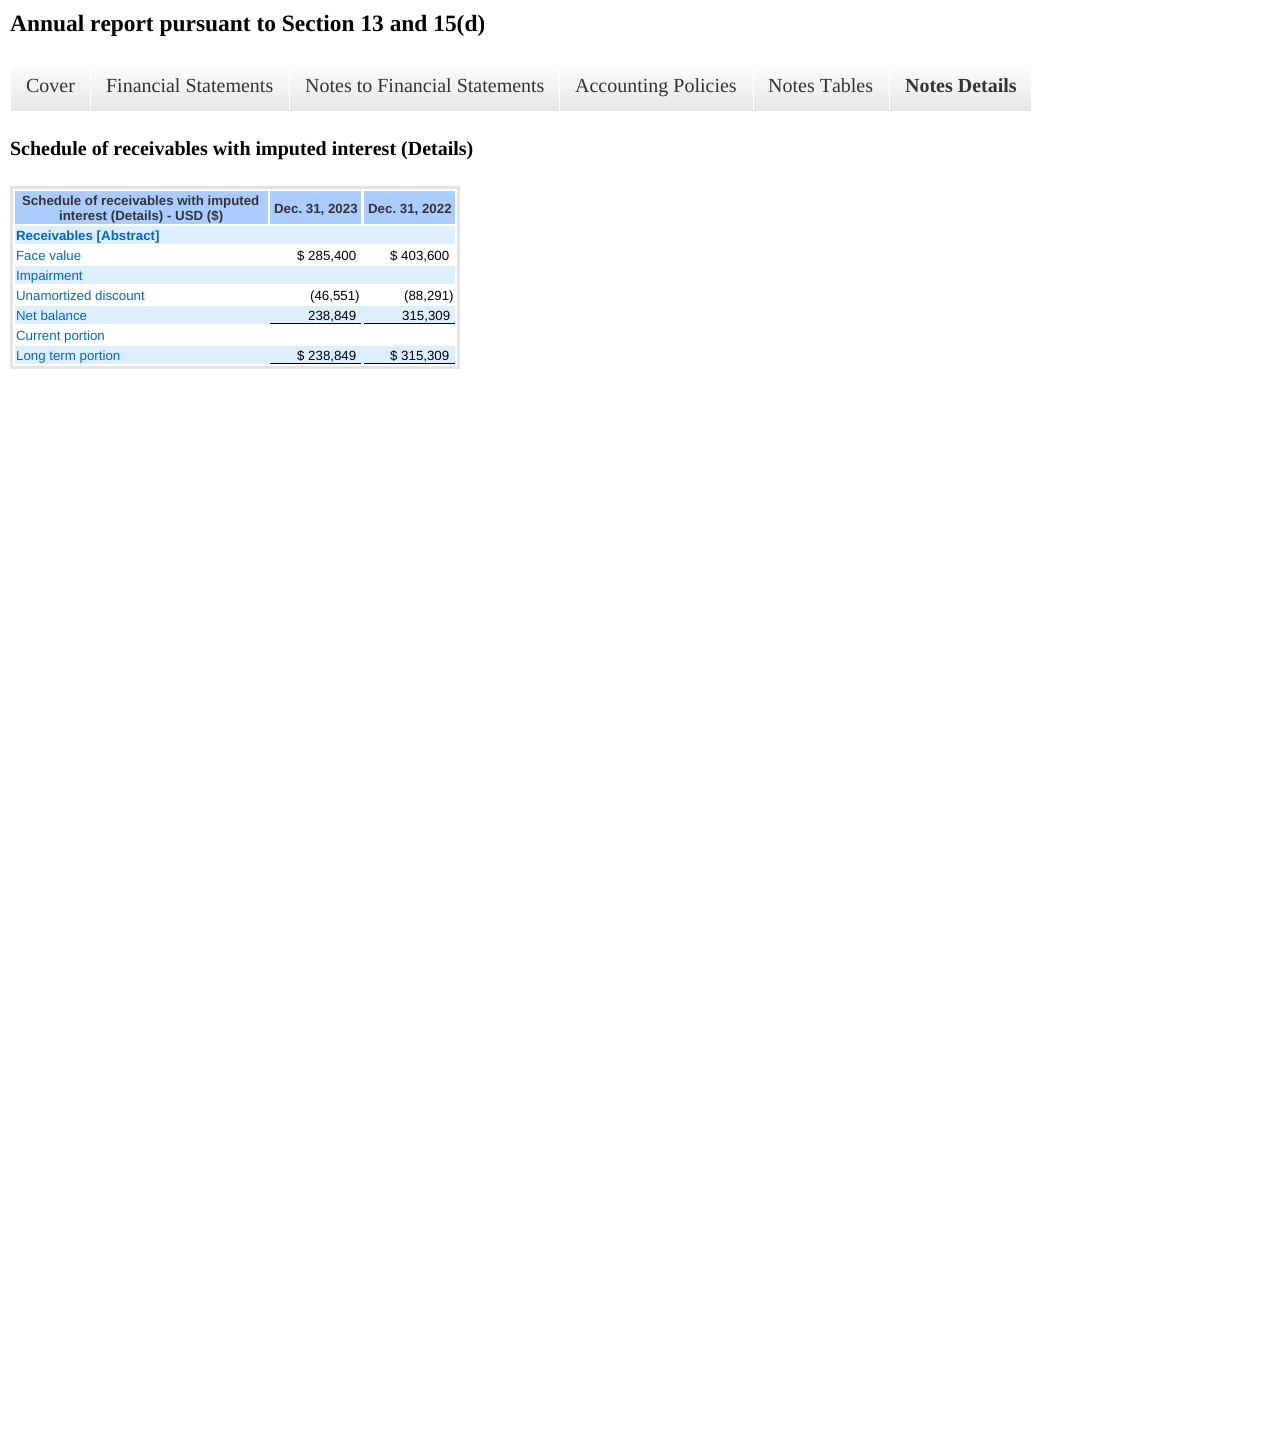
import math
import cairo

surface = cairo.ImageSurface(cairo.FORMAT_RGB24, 1277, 1448)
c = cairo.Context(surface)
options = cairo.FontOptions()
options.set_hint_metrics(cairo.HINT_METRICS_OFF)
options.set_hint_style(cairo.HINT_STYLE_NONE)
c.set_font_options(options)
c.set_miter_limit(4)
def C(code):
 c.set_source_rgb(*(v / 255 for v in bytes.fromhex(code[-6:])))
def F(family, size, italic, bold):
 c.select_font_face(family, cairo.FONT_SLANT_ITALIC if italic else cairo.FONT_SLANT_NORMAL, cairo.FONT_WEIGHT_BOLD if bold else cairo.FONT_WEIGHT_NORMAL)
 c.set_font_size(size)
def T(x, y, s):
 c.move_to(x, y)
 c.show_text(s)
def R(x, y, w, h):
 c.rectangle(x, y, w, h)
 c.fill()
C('ffffff')
c.paint()
F('Liberation Serif',23.4,0,1)
C('000000')
T(10,31,'Annual report pursuant to Section 13 and 15(d)')
gradient = cairo.LinearGradient(51,61,51,111)
gradient.add_color_stop_rgba(0,1,1,1,1)
gradient.add_color_stop_rgba(1,0.898,0.898,0.898,1)
c.set_source(gradient)
R(11,66,79,45)
F('Liberation Serif',20,0,0)
C('333333')
T(26,92,'Cover')
gradient = cairo.LinearGradient(190,61,190,111)
gradient.add_color_stop_rgba(0,1,1,1,1)
gradient.add_color_stop_rgba(1,0.898,0.898,0.898,1)
c.set_source(gradient)
R(91,66,198,45)
C('333333')
T(106,92,'Financial Statements')
gradient = cairo.LinearGradient(424,61,424,111)
gradient.add_color_stop_rgba(0,1,1,1,1)
gradient.add_color_stop_rgba(1,0.898,0.898,0.898,1)
c.set_source(gradient)
R(290,66,269,45)
C('333333')
T(305,92,'Notes to Financial Statements')
gradient = cairo.LinearGradient(656,61,656,111)
gradient.add_color_stop_rgba(0,1,1,1,1)
gradient.add_color_stop_rgba(1,0.898,0.898,0.898,1)
c.set_source(gradient)
R(560,66,193,45)
C('333333')
T(575,92,'Accounting Policies')
gradient = cairo.LinearGradient(821,61,821,111)
gradient.add_color_stop_rgba(0,1,1,1,1)
gradient.add_color_stop_rgba(1,0.898,0.898,0.898,1)
c.set_source(gradient)
R(754,66,135,45)
C('333333')
T(768,92,'Notes Tables')
gradient = cairo.LinearGradient(961,61,961,111)
gradient.add_color_stop_rgba(0,1,1,1,1)
gradient.add_color_stop_rgba(1,0.898,0.898,0.898,1)
c.set_source(gradient)
R(890,66,141,45)
F('Liberation Serif',20,0,1)
C('333333')
T(905,92,'Notes Details')
C('000000')
T(10,155,'Schedule of receivables with imputed interest (Details)')
c.rectangle(11.5,187.5,447,180)
C('e3e3e3')
c.set_line_width(3)
c.stroke()
C('aaccff')
R(15,191,253,33)
F('Liberation Sans',13.3,0,1)
C('333333')
T(22,205,'Schedule of receivables with imputed')
T(59,220,'interest (Details) - USD ($)')
C('aaccff')
R(270,191,91,33)
C('333333')
T(274,213,'Dec. 31, 2023')
C('aaccff')
R(364,191,91,33)
C('333333')
T(368,213,'Dec. 31, 2022')
C('ddeeff')
R(15,226,440,18)
C('0066cc')
T(16,240,'Receivables [Abstract]')
F('Liberation Sans',13.3,0,0)
T(16,260,'Face value')
C('000000')
T(297,260,'$ 285,400')
T(390,260,'$ 403,600')
C('ddeeff')
R(15,266,440,18)
C('0066cc')
T(16,280,'Impairment')
T(16,300,'Unamortized discount')
C('000000')
T(310,300,'(46,551)')
T(404,300,'(88,291)')
C('ddeeff')
R(15,306,440,18)
C('0066cc')
T(16,320,'Net balance')
C('000000')
R(270,323,91,1)
T(308,320,'238,849')
R(364,323,91,1)
T(402,320,'315,309')
C('0066cc')
T(16,340,'Current portion')
C('ddeeff')
R(15,346,440,18)
C('0066cc')
T(16,360,'Long term portion')
C('000000')
R(270,363,91,1)
T(297,360,'$ 238,849')
R(364,363,91,1)
T(390,360,'$ 315,309')
surface.write_to_png('o.png')
